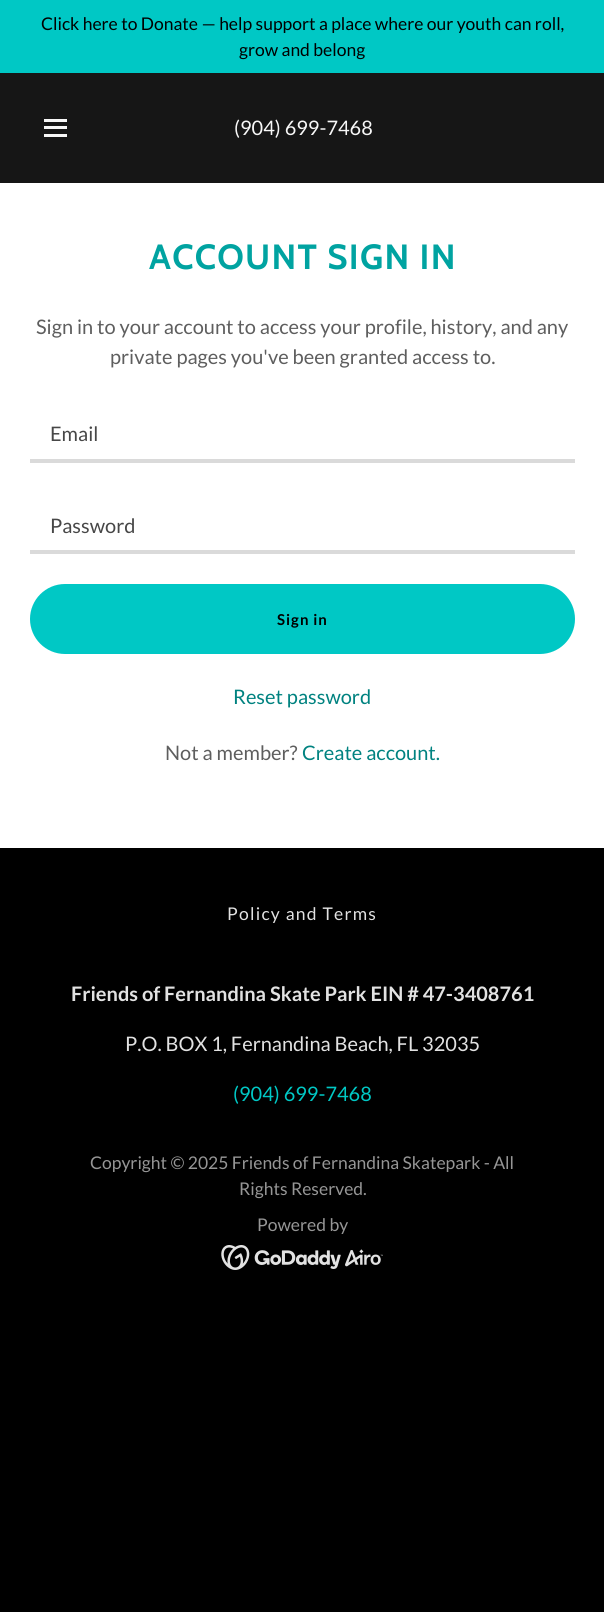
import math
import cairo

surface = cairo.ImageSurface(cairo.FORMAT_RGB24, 604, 1612)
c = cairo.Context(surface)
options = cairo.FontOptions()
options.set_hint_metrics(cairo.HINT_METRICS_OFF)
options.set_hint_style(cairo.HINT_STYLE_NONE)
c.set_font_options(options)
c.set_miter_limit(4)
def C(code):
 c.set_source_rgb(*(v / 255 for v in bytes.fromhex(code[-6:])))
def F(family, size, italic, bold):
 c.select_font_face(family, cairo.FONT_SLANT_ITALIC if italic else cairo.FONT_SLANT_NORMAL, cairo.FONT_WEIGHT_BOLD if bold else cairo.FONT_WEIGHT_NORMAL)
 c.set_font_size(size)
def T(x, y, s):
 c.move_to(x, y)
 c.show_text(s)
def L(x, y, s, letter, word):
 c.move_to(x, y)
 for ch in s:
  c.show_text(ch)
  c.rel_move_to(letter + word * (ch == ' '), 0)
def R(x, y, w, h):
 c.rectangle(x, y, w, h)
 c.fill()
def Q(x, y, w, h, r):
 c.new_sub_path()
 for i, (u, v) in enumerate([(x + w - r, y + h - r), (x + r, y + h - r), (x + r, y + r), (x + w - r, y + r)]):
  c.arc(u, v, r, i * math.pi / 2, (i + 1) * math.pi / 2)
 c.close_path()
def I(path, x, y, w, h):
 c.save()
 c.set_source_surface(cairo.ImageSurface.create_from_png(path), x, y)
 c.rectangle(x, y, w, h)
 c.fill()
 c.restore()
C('000000')
c.paint()
C('161616')
R(0,73,604,110)
C('00c8c5')
R(0,0,604,73)
F('Lato',17.5,0,0)
C('000000')
T(41,30,'Click here to Donate — help support a place where our youth can roll,')
T(239,56,'grow and belong')
C('f7f7f7')
R(44,119,23,3)
R(44,126,23,3)
R(44,134,23,3)
F('Lato',20,0,0)
T(234,135,'(904) 699-7468')
C('ffffff')
R(0,183,604,665)
F('Cabin',35,0,1)
C('00a3a1')
L(149,269,'ACCOUNT SIGN IN',1.25,0)
F('Lato',20,0,0)
C('5e5e5e')
T(36,334,'Sign in to your account to access your profile, history, and any')
T(110,364,'private pages you\'ve been granted access to.')
C('dadada')
R(30,459,545,4)
C('474747')
T(50,441,'Email')
C('dadada')
R(30,550,545,4)
C('474747')
T(50,533,'Password')
C('00c8c5')
Q(30,584,545,70,35)
c.fill()
F('Lato',15,0,1)
C('000000')
L(277,625,'Sign in',1,0)
F('Lato',20,0,0)
C('008280')
T(233,704,'Reset password')
C('5e5e5e')
T(165,760,'Not a member?')
C('008280')
T(302,760,'Create account.')
F('Lato',17.5,0,0)
C('e2e2e2')
L(227,920,'Policy and Terms',1.25,0)
F('Lato',20,0,1)
T(71,1001,'Friends of Fernandina Skate Park EIN # 47-3408761')
F('Lato',20,0,0)
T(125,1051,'P.O. BOX 1, Fernandina Beach, FL 32035')
C('00c8c5')
T(233,1101,'(904) 699-7468')
F('Lato',17.5,0,0)
C('969696')
T(90,1169,'Copyright © 2025 Friends of Fernandina Skatepark - All')
T(239,1195,'Rights Reserved.')
T(257,1231,'Powered by')
I('1.png',221,1245,162,25)
surface.write_to_png('o.png')
